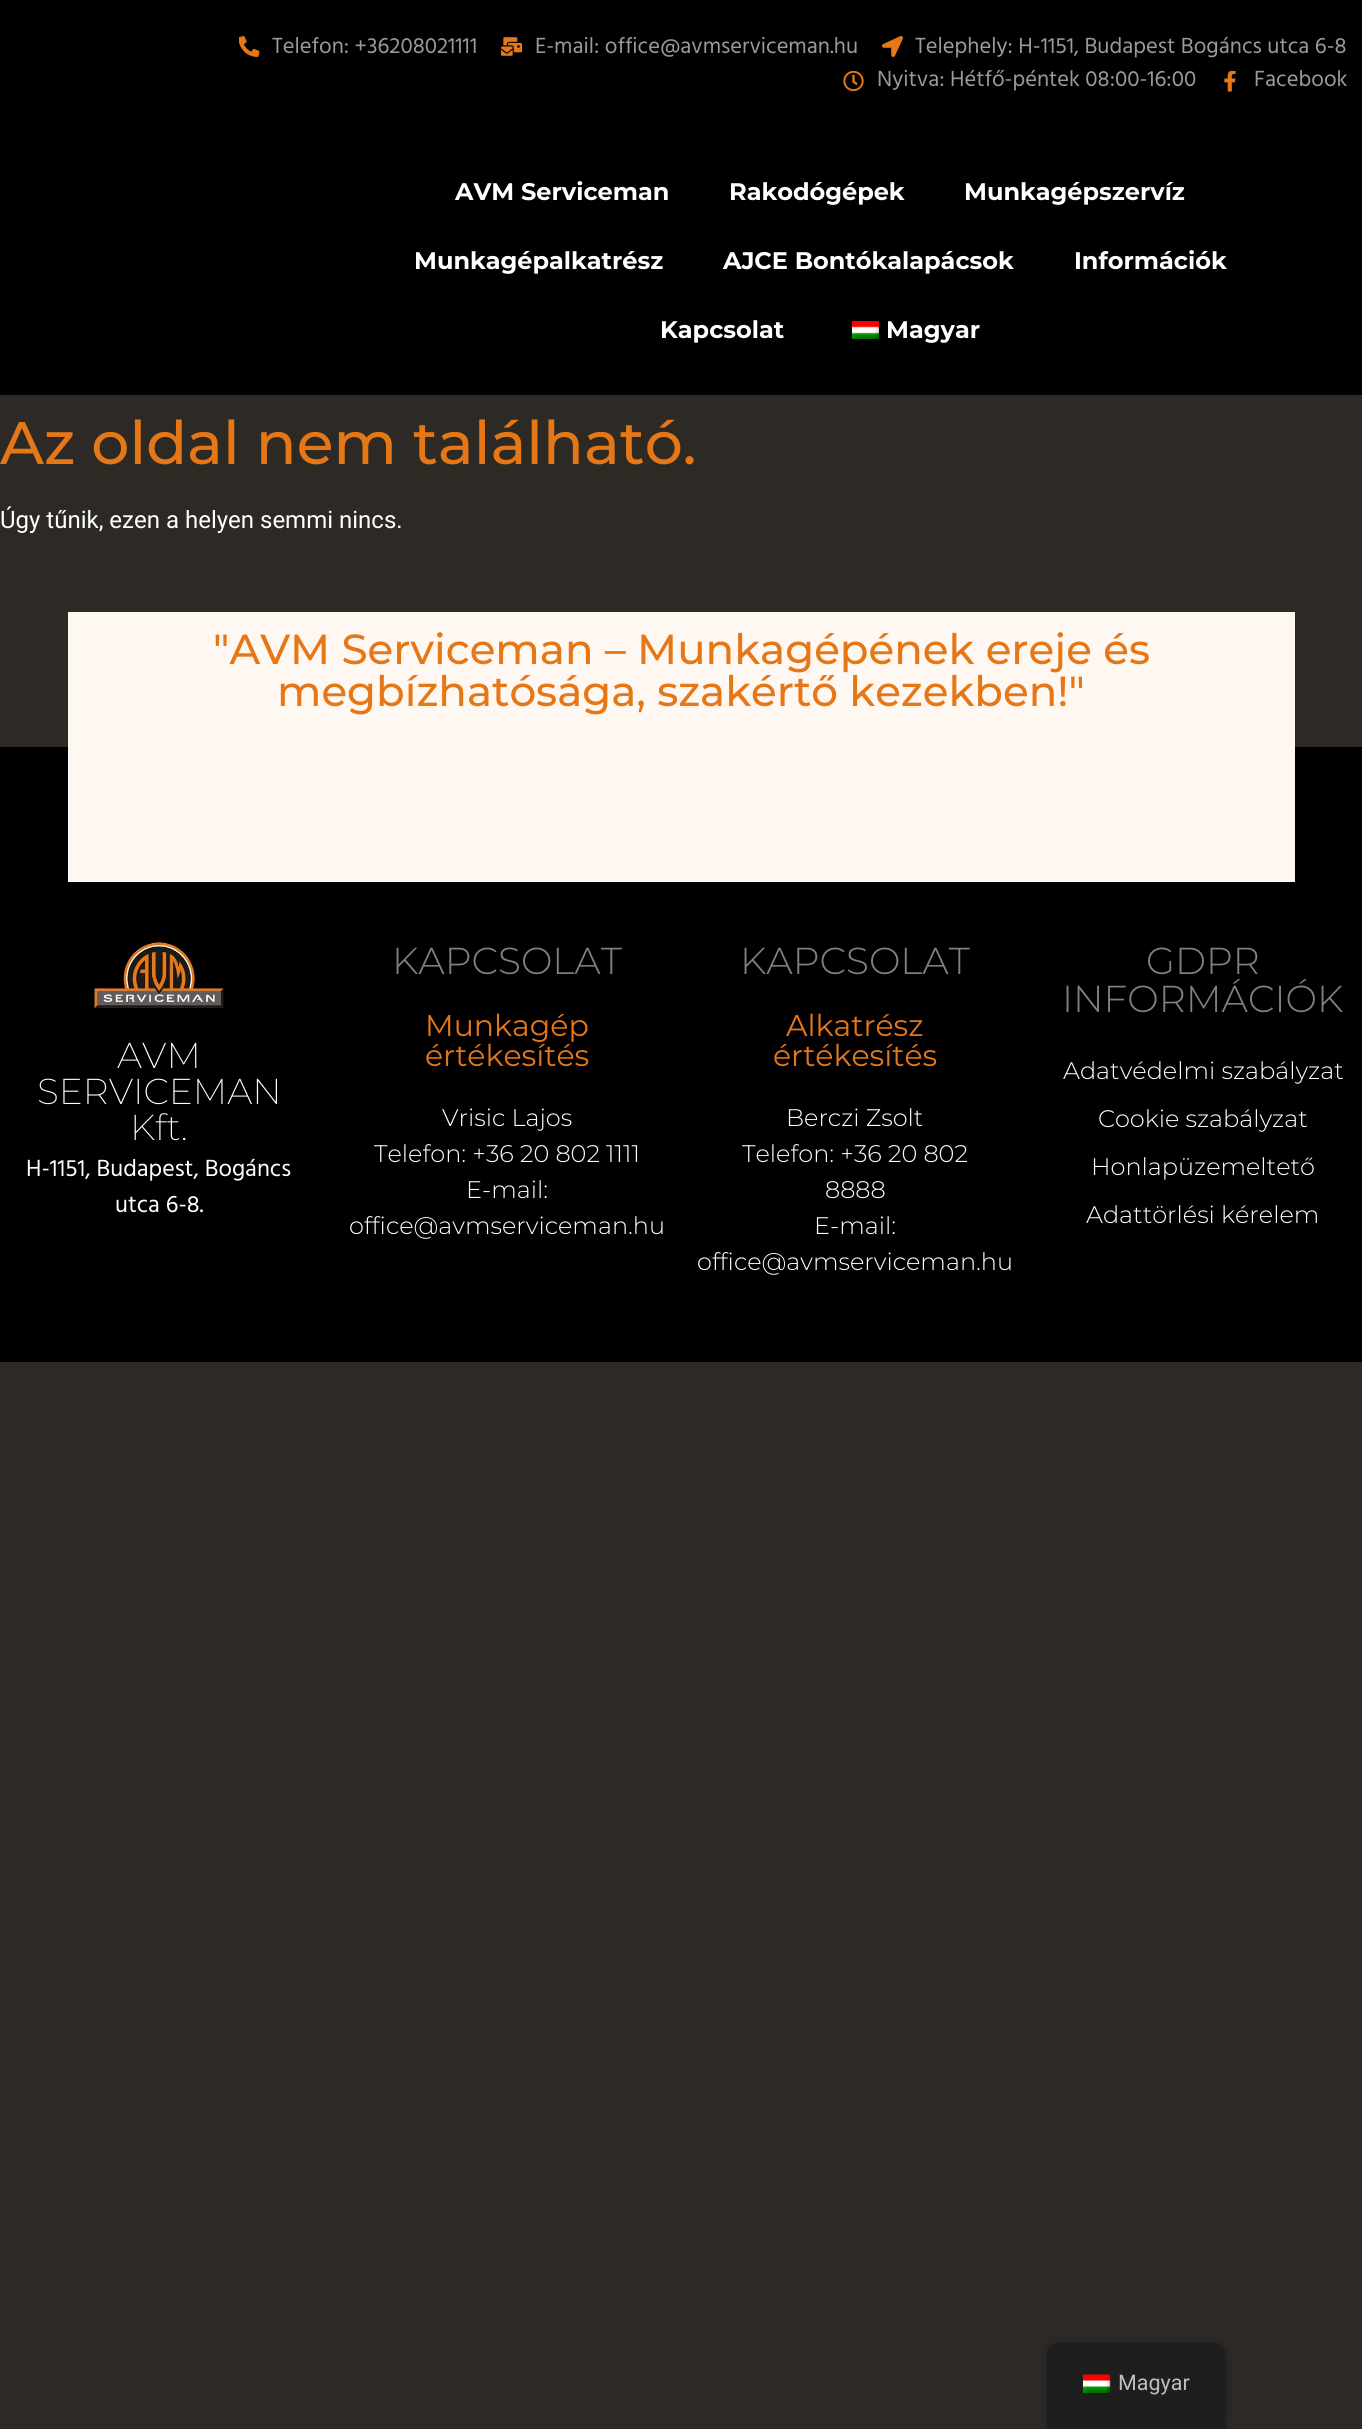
import math
import cairo

surface = cairo.ImageSurface(cairo.FORMAT_RGB24, 1362, 2429)
c = cairo.Context(surface)
options = cairo.FontOptions()
options.set_hint_metrics(cairo.HINT_METRICS_OFF)
options.set_hint_style(cairo.HINT_STYLE_NONE)
c.set_font_options(options)
c.set_miter_limit(4)
def C(code):
 c.set_source_rgb(*(v / 255 for v in bytes.fromhex(code[-6:])))
def F(family, size, italic, bold):
 c.select_font_face(family, cairo.FONT_SLANT_ITALIC if italic else cairo.FONT_SLANT_NORMAL, cairo.FONT_WEIGHT_BOLD if bold else cairo.FONT_WEIGHT_NORMAL)
 c.set_font_size(size)
def T(x, y, s):
 c.move_to(x, y)
 c.show_text(s)
def R(x, y, w, h):
 c.rectangle(x, y, w, h)
 c.fill()
def Q(x, y, w, h, r):
 c.new_sub_path()
 for i, (u, v) in enumerate([(x + w - r, y + h - r), (x + r, y + h - r), (x + r, y + r), (x + w - r, y + r)]):
  c.arc(u, v, r, i * math.pi / 2, (i + 1) * math.pi / 2)
 c.close_path()
def S(x, y, w, h, r, blur, alpha):
 c.push_group_with_content(cairo.CONTENT_ALPHA)
 c.set_operator(cairo.OPERATOR_SOURCE)
 for i in range(15, -16, -2):
  e = blur * i / 6
  if min(w, h) + 2 * e > 0:
   c.set_source_rgba(0, 0, 0, alpha * math.erfc((i - 1) / 8.5) / 2)
   Q(x - e, y - e, w + 2 * e, h + 2 * e, max(0, min(r + e + blur * .6, min(w, h) / 2 + e)))
   c.fill()
 c.mask(c.pop_group())
def I(path, x, y, w, h):
 c.save()
 c.set_source_surface(cairo.ImageSurface.create_from_png(path), x, y)
 c.rectangle(x, y, w, h)
 c.fill()
 c.restore()
C('2d2a26')
c.paint()
C('000000')
R(0,0,1362,395)
I('1.png',239,36,21,21)
F('Hind',22.5,0,0)
C('949ba1')
T(272,53,'Telefon: +36208021111')
I('2.png',501,37,21,19)
T(535,53,'E-mail: office@avmserviceman.hu')
I('3.png',882,36,21,21)
T(915,53,'Telephely: H-1151, Budapest Bogáncs utca 6-8')
I('4.png',843,71,21,21)
T(877,86,'Nyitva: Hétfő-péntek 08:00-16:00')
I('5.png',1224,71,12,21)
T(1254,86,'Facebook')
F('Montserrat',24,0,1)
C('ffffff')
T(455,200,'AVM Serviceman')
T(729,200,'Rakodógépek')
T(964,200,'Munkagépszervíz')
T(414,269,'Munkagépalkatrész')
T(723,269,'AJCE Bontókalapácsok')
T(1074,269,'Információk')
T(660,338,'Kapcsolat')
I('6.png',852,321,27,18)
T(886,338,'Magyar')
F('Montserrat Medium',60,0,0)
C('e57716')
T(0,464,'Az oldal nem található.')
F('Roboto',24,0,0)
C('ffffff')
T(0,528,'Úgy tűnik, ezen a helyen semmi nincs.')
C('000000')
R(0,747,1362,615)
C('fff7f1')
R(68,612,1227,270)
F('Montserrat Medium',42,0,0)
C('e57716')
T(213,664,'"AVM Serviceman – Munkagépének ereje és')
T(277,706,'megbízhatósága, szakértő kezekben!"')
I('7.png',94,942,130,66)
F('Montserrat ExtraLight',36,0,0)
C('ffffff')
T(117,1068,'AVM')
T(37,1104,'SERVICEMAN')
T(130,1140,'Kft.')
F('Hind',24,0,0)
T(26,1176,'H-1151, Budapest, Bogáncs')
T(115,1212,'utca 6-8.')
F('Montserrat Light',37.5,0,0)
C('808080')
T(392,974,'KAPCSOLAT')
F('Montserrat',30,0,0)
C('e57716')
T(425,1036,'Munkagép')
T(425,1066,'értékesítés')
F('Montserrat Light',24,0,0)
C('ffffff')
T(442,1126,'Vrisic Lajos')
T(374,1162,'Telefon: +36 20 802 1111')
T(466,1198,'E-mail:')
T(349,1234,'office@avmserviceman.hu')
F('Montserrat Light',37.5,0,0)
C('808080')
T(740,974,'KAPCSOLAT')
F('Montserrat',30,0,0)
C('e57716')
T(786,1036,'Alkatrész')
T(773,1066,'értékesítés')
F('Montserrat Light',24,0,0)
C('ffffff')
T(786,1126,'Berczi Zsolt')
T(742,1162,'Telefon: +36 20 802')
T(825,1198,'8888')
T(814,1234,'E-mail:')
T(697,1270,'office@avmserviceman.hu')
F('Montserrat Light',37.5,0,0)
C('808080')
T(1146,974,'GDPR')
T(1062,1012,'INFORMÁCIÓK')
F('Montserrat Light',24,0,0)
C('ffffff')
T(1063,1079,'Adatvédelmi szabályzat')
T(1098,1127,'Cookie szabályzat')
T(1091,1175,'Honlapüzemeltető')
T(1086,1223,'Adattörlési kérelem')
C('000000')
S(1047,2343,179,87,12,6,.25)
C('1e1e1e')
c.new_path()
c.move_to(1059,2343)
c.line_to(1214,2343)
c.curve_to(1220.5,2343,1226,2348.5,1226,2355)
c.line_to(1226,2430)
c.line_to(1047,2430)
c.line_to(1047,2355)
c.curve_to(1047,2348.5,1052.5,2343,1059,2343)
c.close_path()
c.fill()
I('8.png',1083,2374,28,19)
F('Roboto',21.5,0,0)
C('bdbdbd')
T(1118,2390,'Magyar')
surface.write_to_png('o.png')
